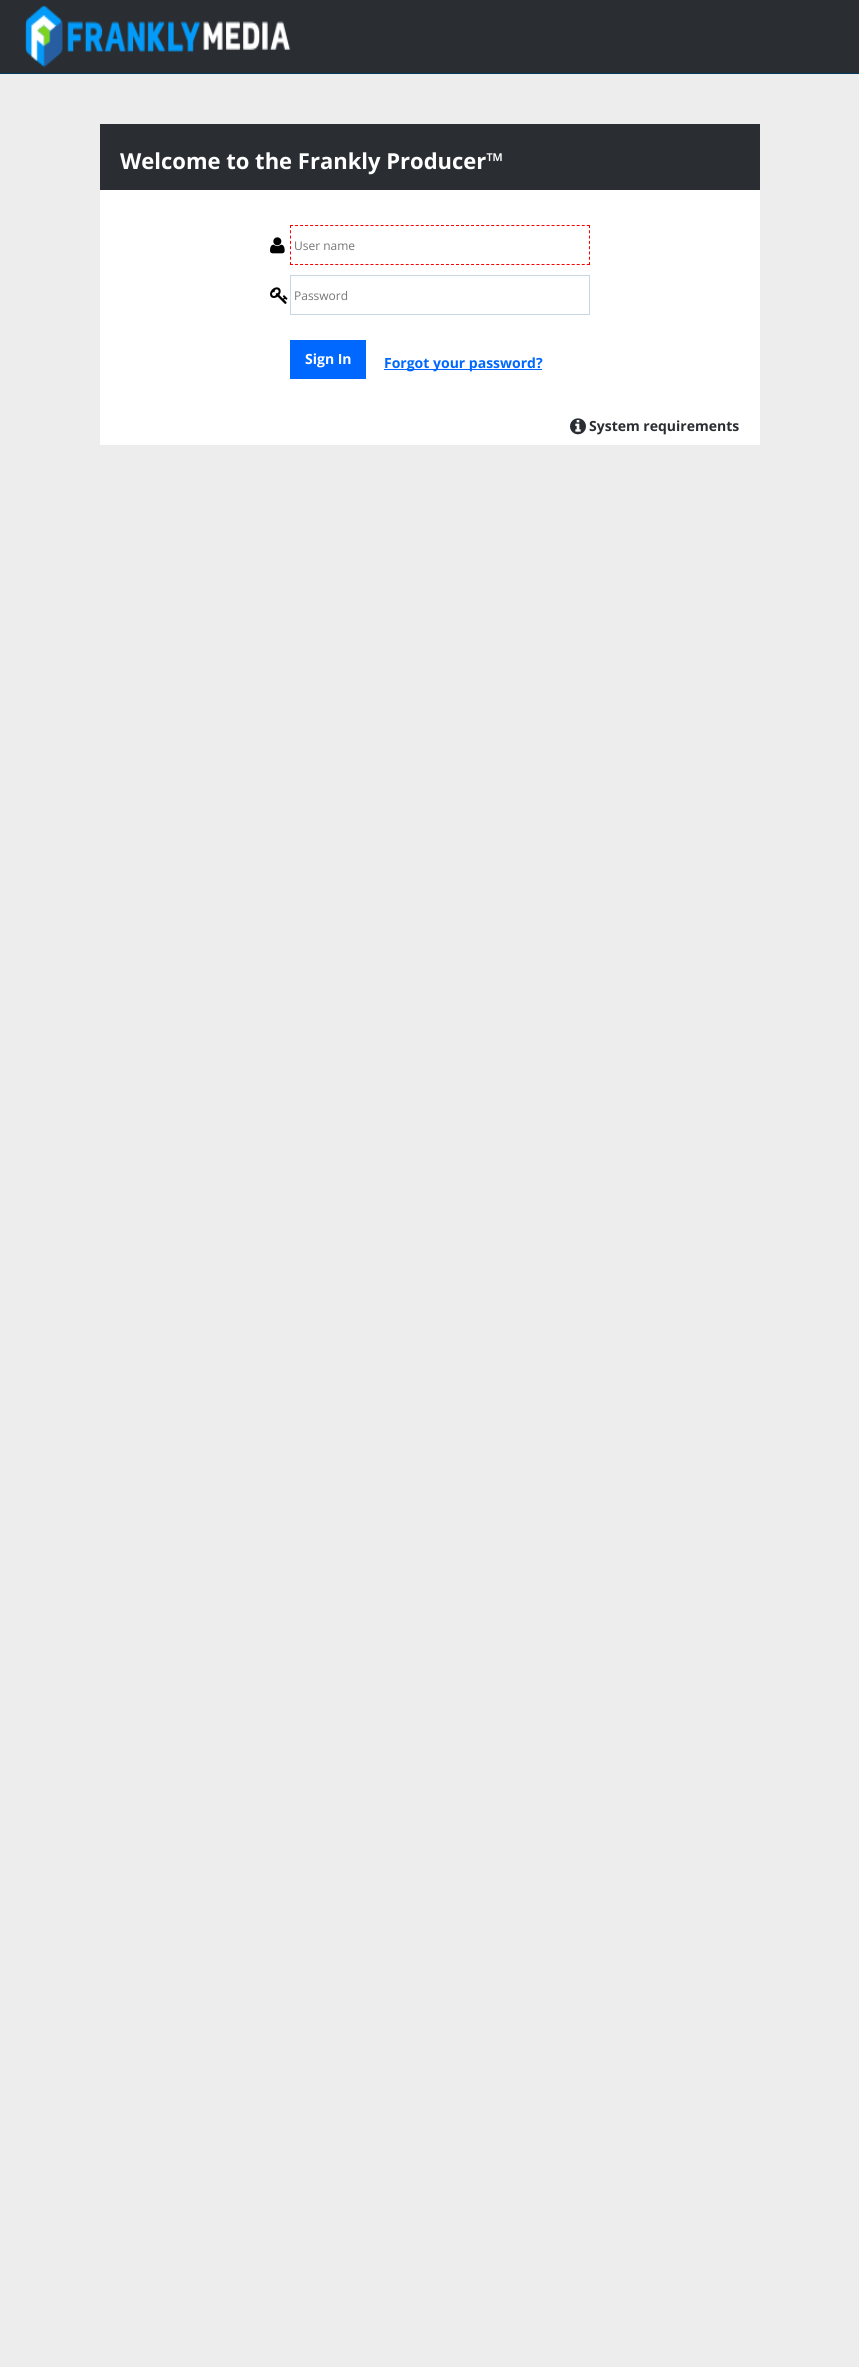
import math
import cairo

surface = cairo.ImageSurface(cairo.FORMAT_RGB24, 859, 2367)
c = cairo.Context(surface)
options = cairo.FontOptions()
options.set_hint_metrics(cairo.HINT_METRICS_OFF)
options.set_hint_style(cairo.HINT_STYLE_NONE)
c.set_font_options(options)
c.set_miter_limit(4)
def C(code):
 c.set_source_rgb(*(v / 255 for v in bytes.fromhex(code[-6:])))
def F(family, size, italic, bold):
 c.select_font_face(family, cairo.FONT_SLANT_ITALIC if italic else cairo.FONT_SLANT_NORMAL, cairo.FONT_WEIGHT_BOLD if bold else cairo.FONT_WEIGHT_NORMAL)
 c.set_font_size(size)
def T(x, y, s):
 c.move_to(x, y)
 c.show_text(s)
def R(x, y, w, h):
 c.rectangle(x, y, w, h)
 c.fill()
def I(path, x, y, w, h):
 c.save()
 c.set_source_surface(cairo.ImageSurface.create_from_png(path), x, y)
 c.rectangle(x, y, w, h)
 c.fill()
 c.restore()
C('ededed')
c.paint()
C('2a2e33')
R(0,0,859,73)
C('023a5f')
R(0,73,859,1)
I('1.png',25,5,266,63)
C('ffffff')
R(100,190,660,255)
C('2a2e33')
R(100,124,660,66)
F('Open Sans',22,0,1)
C('ffffff')
T(120,169,'Welcome to the Frankly Producer™')
I('2.png',270,237,15,17)
c.new_path()
c.move_to(290,225.5)
c.line_to(590,225.5)
C('ff0000')
c.set_line_width(1)
c.set_dash([3,2.03])
c.stroke()
c.new_path()
c.move_to(589.5,225)
c.line_to(589.5,265)
c.set_dash([3,2.29])
c.stroke()
c.new_path()
c.move_to(290,264.5)
c.line_to(590,264.5)
c.set_dash([3,2.03])
c.stroke()
c.new_path()
c.move_to(290.5,225)
c.line_to(290.5,265)
c.set_dash([3,2.29])
c.stroke()
F('Open Sans',12,0,0)
C('757575')
T(294,250,'User name')
I('3.png',270,287,18,17)
c.rectangle(290.5,275.5,299,39)
C('c8d7e1')
c.set_dash([])
c.stroke()
C('757575')
T(294,300,'Password')
C('0068ff')
R(290,340,76,39)
F('Open Sans',14,0,1)
C('ffffff')
T(305,364,'Sign In')
C('0068ff')
R(384,369,158,1)
T(384,368,'Forgot your password?')
I('4.png',570,418,16,17)
C('2a2e33')
T(589,431,'System requirements')
surface.write_to_png('o.png')
